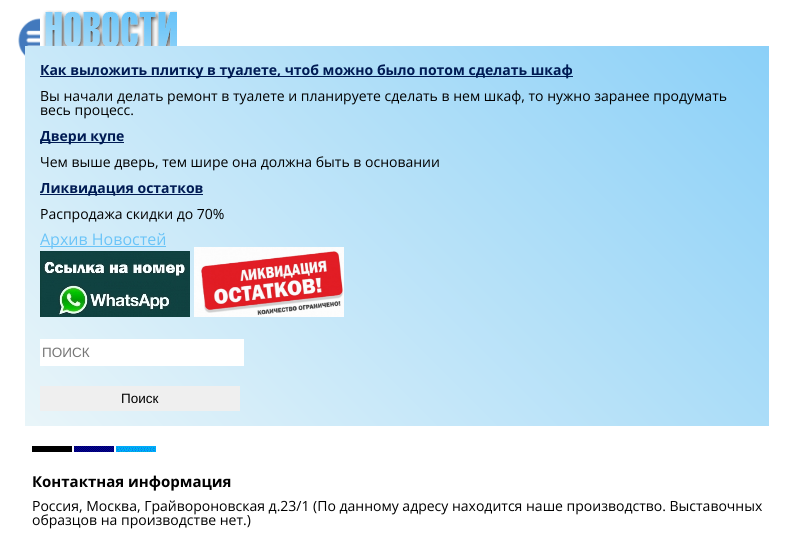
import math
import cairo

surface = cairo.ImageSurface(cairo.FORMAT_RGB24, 794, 545)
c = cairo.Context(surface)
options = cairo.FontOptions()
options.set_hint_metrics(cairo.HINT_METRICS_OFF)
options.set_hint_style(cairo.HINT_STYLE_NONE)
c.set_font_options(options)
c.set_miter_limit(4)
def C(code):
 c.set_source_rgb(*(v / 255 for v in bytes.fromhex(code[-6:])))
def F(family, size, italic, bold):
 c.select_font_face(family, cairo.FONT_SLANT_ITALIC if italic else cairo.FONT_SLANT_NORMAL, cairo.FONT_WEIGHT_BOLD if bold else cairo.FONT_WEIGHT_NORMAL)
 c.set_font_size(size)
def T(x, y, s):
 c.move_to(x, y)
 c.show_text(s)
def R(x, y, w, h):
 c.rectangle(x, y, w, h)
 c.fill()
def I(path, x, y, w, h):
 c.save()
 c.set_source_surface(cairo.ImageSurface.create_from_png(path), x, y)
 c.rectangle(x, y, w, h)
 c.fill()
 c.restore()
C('ffffff')
c.paint()
I('1.png',18,18,22,38)
gradient = cairo.LinearGradient(116,517,678,-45)
gradient.add_color_stop_rgba(0,0.914,0.961,0.976,1)
gradient.add_color_stop_rgba(1,0.545,0.816,0.973,1)
c.set_source(gradient)
R(25,46,744,380)
I('2.png',40,10,137,36)
C('001b54')
R(40,76,533,1)
F('Open Sans',14,0,1)
T(40,75,'Как выложить плитку в туалете, чтоб можно было потом сделать шкаф')
F('Open Sans',14,0,0)
C('000000')
T(40,101,'Вы начали делать ремонт в туалете и планируете сделать в нем шкаф, то нужно заранее продумать')
T(40,115,'весь процесс.')
C('001b54')
R(40,142,84,1)
F('Open Sans',14,0,1)
T(40,141,'Двери купе')
F('Open Sans',14,0,0)
C('000000')
T(40,167,'Чем выше дверь, тем шире она должна быть в основании')
C('001b54')
R(40,194,163,1)
F('Open Sans',14,0,1)
T(40,193,'Ликвидация остатков')
F('Open Sans',14,0,0)
C('000000')
T(40,219,'Распродажа скидки до 70%')
C('6ac4f8')
R(40,246,126,1)
F('Open Sans',16,0,0)
T(40,245,'Архив Новостей')
I('3.png',40,251,150,66)
I('4.png',194,247,150,70)
C('ffffff')
R(40,339,204,27)
F('Liberation Sans',13.5,0,0)
C('757575')
T(42,357,'ПОИСК')
C('efefef')
R(40,386,200,25)
C('000000')
T(121,403,'Поиск')
I('5.png',32,446,124,6)
F('Open Sans',15,0,1)
T(32,487,'Контактная информация')
F('Open Sans',14,0,0)
T(32,511,'Россия, Москва, Грайвороновская д.23/1 (По данному адресу находится наше производство. Выставочных')
T(32,525,'образцов на производстве нет.)')
surface.write_to_png('o.png')
